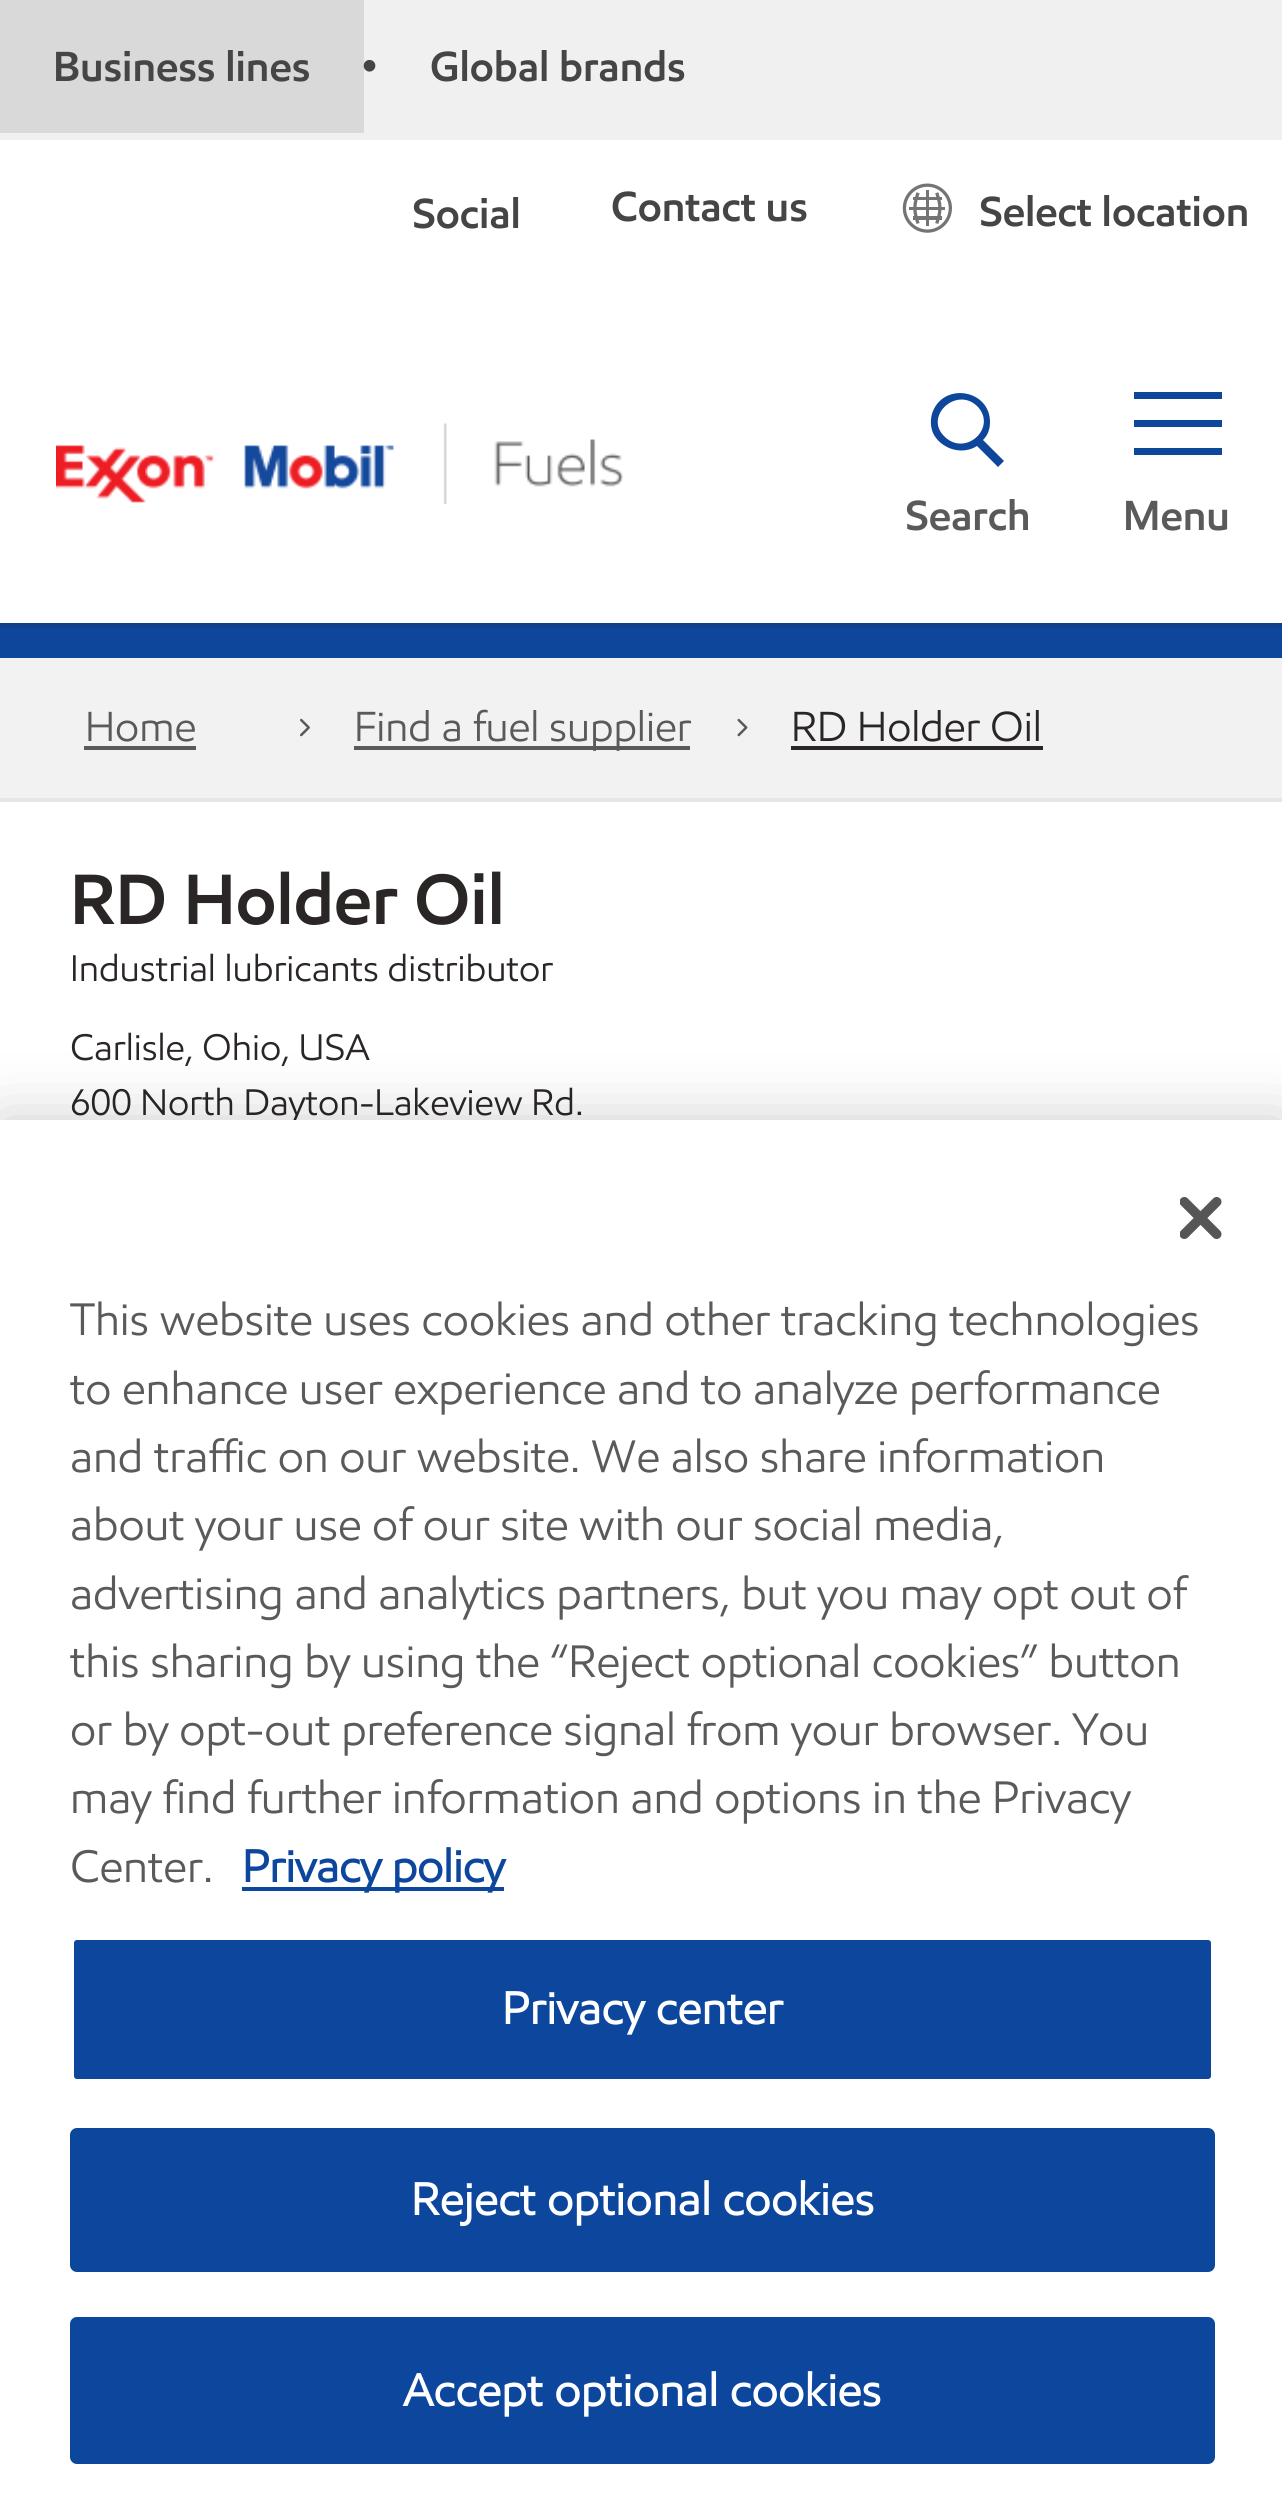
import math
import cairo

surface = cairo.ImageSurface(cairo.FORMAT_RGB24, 1282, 2509)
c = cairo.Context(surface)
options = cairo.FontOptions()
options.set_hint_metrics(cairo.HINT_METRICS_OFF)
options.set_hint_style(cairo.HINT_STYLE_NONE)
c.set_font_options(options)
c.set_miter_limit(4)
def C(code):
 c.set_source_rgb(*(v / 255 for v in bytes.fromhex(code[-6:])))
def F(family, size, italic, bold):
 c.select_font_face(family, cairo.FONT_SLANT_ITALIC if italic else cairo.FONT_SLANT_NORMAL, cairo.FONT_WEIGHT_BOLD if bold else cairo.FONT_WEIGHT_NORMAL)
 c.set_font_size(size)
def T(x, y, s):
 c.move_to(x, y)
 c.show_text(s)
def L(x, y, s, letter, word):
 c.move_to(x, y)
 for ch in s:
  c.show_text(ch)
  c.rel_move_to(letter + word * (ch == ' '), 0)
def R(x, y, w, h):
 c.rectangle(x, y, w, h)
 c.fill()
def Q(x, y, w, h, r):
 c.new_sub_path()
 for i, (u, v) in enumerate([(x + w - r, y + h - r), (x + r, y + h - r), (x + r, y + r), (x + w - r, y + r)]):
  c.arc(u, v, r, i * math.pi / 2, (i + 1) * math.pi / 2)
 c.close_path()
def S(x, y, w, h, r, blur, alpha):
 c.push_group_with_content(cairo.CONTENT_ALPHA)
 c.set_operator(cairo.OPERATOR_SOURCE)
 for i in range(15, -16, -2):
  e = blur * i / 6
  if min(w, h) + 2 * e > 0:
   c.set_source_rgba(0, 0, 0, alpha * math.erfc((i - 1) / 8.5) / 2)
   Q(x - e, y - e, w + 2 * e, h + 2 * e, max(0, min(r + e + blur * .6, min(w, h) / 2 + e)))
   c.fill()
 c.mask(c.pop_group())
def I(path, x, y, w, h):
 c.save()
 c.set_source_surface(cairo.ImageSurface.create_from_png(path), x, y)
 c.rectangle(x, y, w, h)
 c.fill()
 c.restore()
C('ffffff')
c.paint()
C('0e469b')
R(0,623,1282,35)
c.save()
c.rectangle(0,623,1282,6)
c.clip()
C('111111')
S(0,4,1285,623,0,2,.15)
c.restore()
C('f0f0f0')
R(0,0,1282,140)
C('d9d9d9')
R(0,0,364,133)
F('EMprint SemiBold',42,0,0)
C('454545')
T(53,81,'Business lines')
F('Liberation Sans',43,0,0)
T(362,80,'•')
F('EMprint SemiBold',42,0,0)
T(430,81,'Global brands')
T(412,228,'Social')
T(611,221,'Contact us')
I('1.png',902,183,50,50)
T(979,226,'Select location')
I('2.png',56,423,567,81)
C('0e469b')
c.new_path()
c.move_to(1004,461)
c.line_to(998,467)
c.line_to(977,446)
c.curve_to(963,455,943,450,934,435)
c.curve_to(930,428,930,418,933,411)
c.curve_to(945,382,990,390,990,422)
c.curve_to(990,429,988,435,983,440)
c.close_path()
c.move_to(977,406)
c.curve_to(956,386,923,417,945,437)
c.curve_to(966,457,998,427,977,406)
c.close_path()
c.fill()
C('5a5a5a')
T(905,530,'Search')
C('0e469b')
R(1134,420,88,7)
R(1134,392,88,7)
R(1134,448,88,7)
C('5a5a5a')
T(1123,530,'Menu')
C('f2f2f2')
R(0,658,1282,140)
C('e6e6e6')
R(0,798,1282,4)
F('EMprint',42,0,0)
C('5a5a5a')
T(85,741,'Home')
R(84,746,112,4)
I('3.png',300,718,10,19)
R(354,746,336,4)
T(354,741,'Find a fuel supplier')
I('4.png',737,718,11,19)
C('2b2626')
T(791,741,'RD Holder Oil')
R(791,746,252,4)
F('EMprint SemiBold',71,0,0)
T(70,924,'RD Holder Oil')
F('EMprint',37,0,0)
T(70,981,'Industrial lubricants distributor')
T(70,1060,'Carlisle, Ohio, USA')
T(70,1115,'600 North Dayton-Lakeview Rd.')
C('000000')
S(0,1120,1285,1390,0,31.5,.2)
C('ffffff')
R(0,1120,1282,1389)
I('5.png',1180,1197,42,42)
F('EMprint',45.5,0,0)
C('5a5a5a')
T(70,1335,'This website uses cookies and other tracking technologies')
T(70,1404,'to enhance user experience and to analyze performance')
T(70,1472,'and traffic on our website. We also share information')
T(70,1540,'about your use of our site with our social media,')
T(70,1609,'advertising and analytics partners, but you may opt out of')
T(70,1677,'this sharing by using the “Reject optional cookies” button')
T(70,1745,'or by opt-out preference signal from your browser. You')
T(70,1813,'may find further information and options in the Privacy')
T(70,1882,'Center.')
C('0c479d')
R(242,1887,262,4)
F('EMprint',45.5,0,1)
T(242,1882,'Privacy policy')
Q(72,1938,1141,143,5)
c.fill_preserve()
C('ffffff')
c.set_line_width(4)
c.stroke()
L(502,2024,'Privacy center',.5,0)
C('0c479d')
Q(72,2130,1141,140,5)
c.fill_preserve()
c.stroke()
C('ffffff')
L(411,2215,'Reject optional cookies',.5,0)
C('0c479d')
Q(72,2319,1141,143,5)
c.fill_preserve()
c.stroke()
C('ffffff')
L(403,2406,'Accept optional cookies',.5,0)
surface.write_to_png('o.png')
